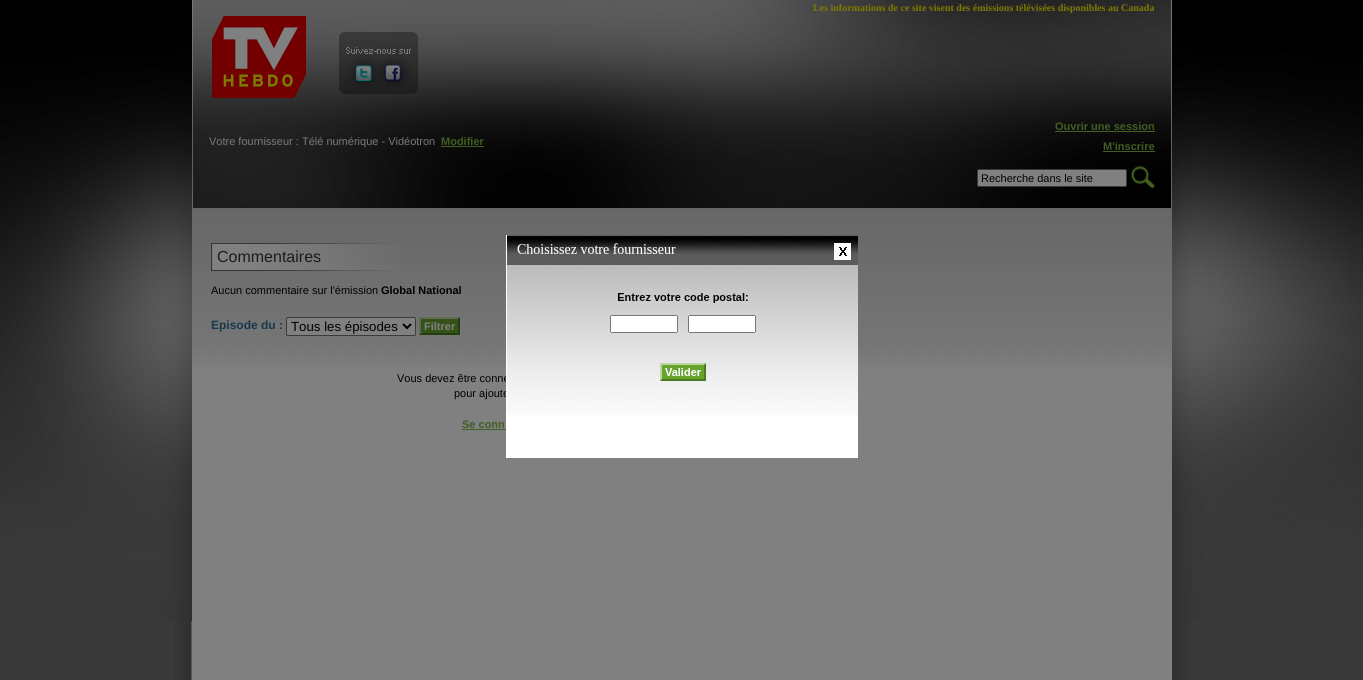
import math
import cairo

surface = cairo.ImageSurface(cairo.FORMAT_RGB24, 1363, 680)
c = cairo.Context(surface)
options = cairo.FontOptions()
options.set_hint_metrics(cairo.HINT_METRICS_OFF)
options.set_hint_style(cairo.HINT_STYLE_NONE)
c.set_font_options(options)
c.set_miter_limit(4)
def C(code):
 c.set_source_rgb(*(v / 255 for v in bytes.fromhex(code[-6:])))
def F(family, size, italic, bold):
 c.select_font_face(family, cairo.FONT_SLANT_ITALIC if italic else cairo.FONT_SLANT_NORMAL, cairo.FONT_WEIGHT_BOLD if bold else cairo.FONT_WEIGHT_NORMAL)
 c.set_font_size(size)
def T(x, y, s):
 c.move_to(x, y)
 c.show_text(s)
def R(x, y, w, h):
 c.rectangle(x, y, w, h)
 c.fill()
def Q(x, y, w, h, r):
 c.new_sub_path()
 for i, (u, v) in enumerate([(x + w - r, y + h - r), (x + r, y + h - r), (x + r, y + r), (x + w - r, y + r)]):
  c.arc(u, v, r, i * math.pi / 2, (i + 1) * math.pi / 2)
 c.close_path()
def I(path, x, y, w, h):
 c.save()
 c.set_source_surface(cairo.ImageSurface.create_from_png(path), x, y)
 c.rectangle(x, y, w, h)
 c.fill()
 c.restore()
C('393939')
c.paint()
I('1.png',174,621,1015,59)
I('2.png',0,0,1363,621)
C('808080')
R(192,368,980,312)
I('3.png',192,0,980,368)
I('4.png',193,0,978,208)
F('Liberation Serif',10,0,1)
C('807900')
T(813,11,'Les informations de ce site visent des émissions télévisées disponibles au Canada')
I('5.png',212,16,94,82)
I('6.png',339,32,79,62)
I('7.png',347,58,31,31)
I('8.png',378,58,31,29)
F('Liberation Sans',11,0,0)
C('7a7a7a')
T(209,145,'Votre fournisseur : Télé numérique - Vidéotron')
F('Liberation Sans',11,0,1)
C('405f21')
T(441,145,'Modifier')
R(441,146,43,1)
T(1055,130,'Ouvrir une session')
R(1055,131,100,1)
T(1103,150,'M\'inscrire')
R(1103,151,52,1)
C('808080')
Q(977.5,169.5,149,17,1.5)
c.fill_preserve()
C('3b3b3b')
c.set_line_width(1)
c.stroke()
F('Liberation Sans',11,0,0)
C('000000')
T(981,182,'Recherche dans le site')
I('9.png',1131,166,24,23)
I('10.png',211,243,187,28)
F('Liberation Sans',16,0,0)
C('1c1c1c')
T(217,262,'Commentaires')
F('Liberation Sans',11,0,0)
C('000000')
T(211,294,'Aucun commentaire sur l\'émission')
F('Liberation Sans',11,0,1)
T(381,294,'Global National')
F('Liberation Sans',12,0,1)
C('18394a')
T(211,329,'Episode du :')
C('808080')
Q(286.5,317.5,129,18,1.5)
c.fill_preserve()
C('3b3b3b')
c.stroke()
c.new_path()
c.move_to(403,324)
c.line_to(407,328)
c.line_to(411,324)
C('000000')
c.set_line_width(2)
c.stroke()
F('Liberation Sans',13.25,0,0)
T(291,331,'Tous les épisodes')
C('345217')
R(419,317,41,18)
C('5f6c52')
c.new_path()
c.move_to(419,317)
c.line_to(460,317)
c.line_to(458,319)
c.line_to(421,319)
c.close_path()
c.fill()
C('263d11')
c.new_path()
c.move_to(460,317)
c.line_to(460,335)
c.line_to(458,333)
c.line_to(458,319)
c.close_path()
c.fill()
c.new_path()
c.move_to(460,335)
c.line_to(419,335)
c.line_to(421,333)
c.line_to(458,333)
c.close_path()
c.fill()
C('5f6c52')
c.new_path()
c.move_to(419,335)
c.line_to(419,317)
c.line_to(421,319)
c.line_to(421,333)
c.close_path()
c.fill()
F('Liberation Sans',11,0,1)
C('808080')
T(424,330,'Filtrer')
F('Liberation Sans',11,0,0)
C('000000')
T(397,382,'Vous devez être conne')
T(454,397,'pour ajoute')
F('Liberation Sans',11,0,1)
C('405f21')
T(462,428,'Se conn')
R(462,429,44,1)
C('ffffff')
R(506,235,352,223)
I('11.png',507,235,351,180)
I('12.png',834,243,17,17)
surface.write_to_png('o.png')
